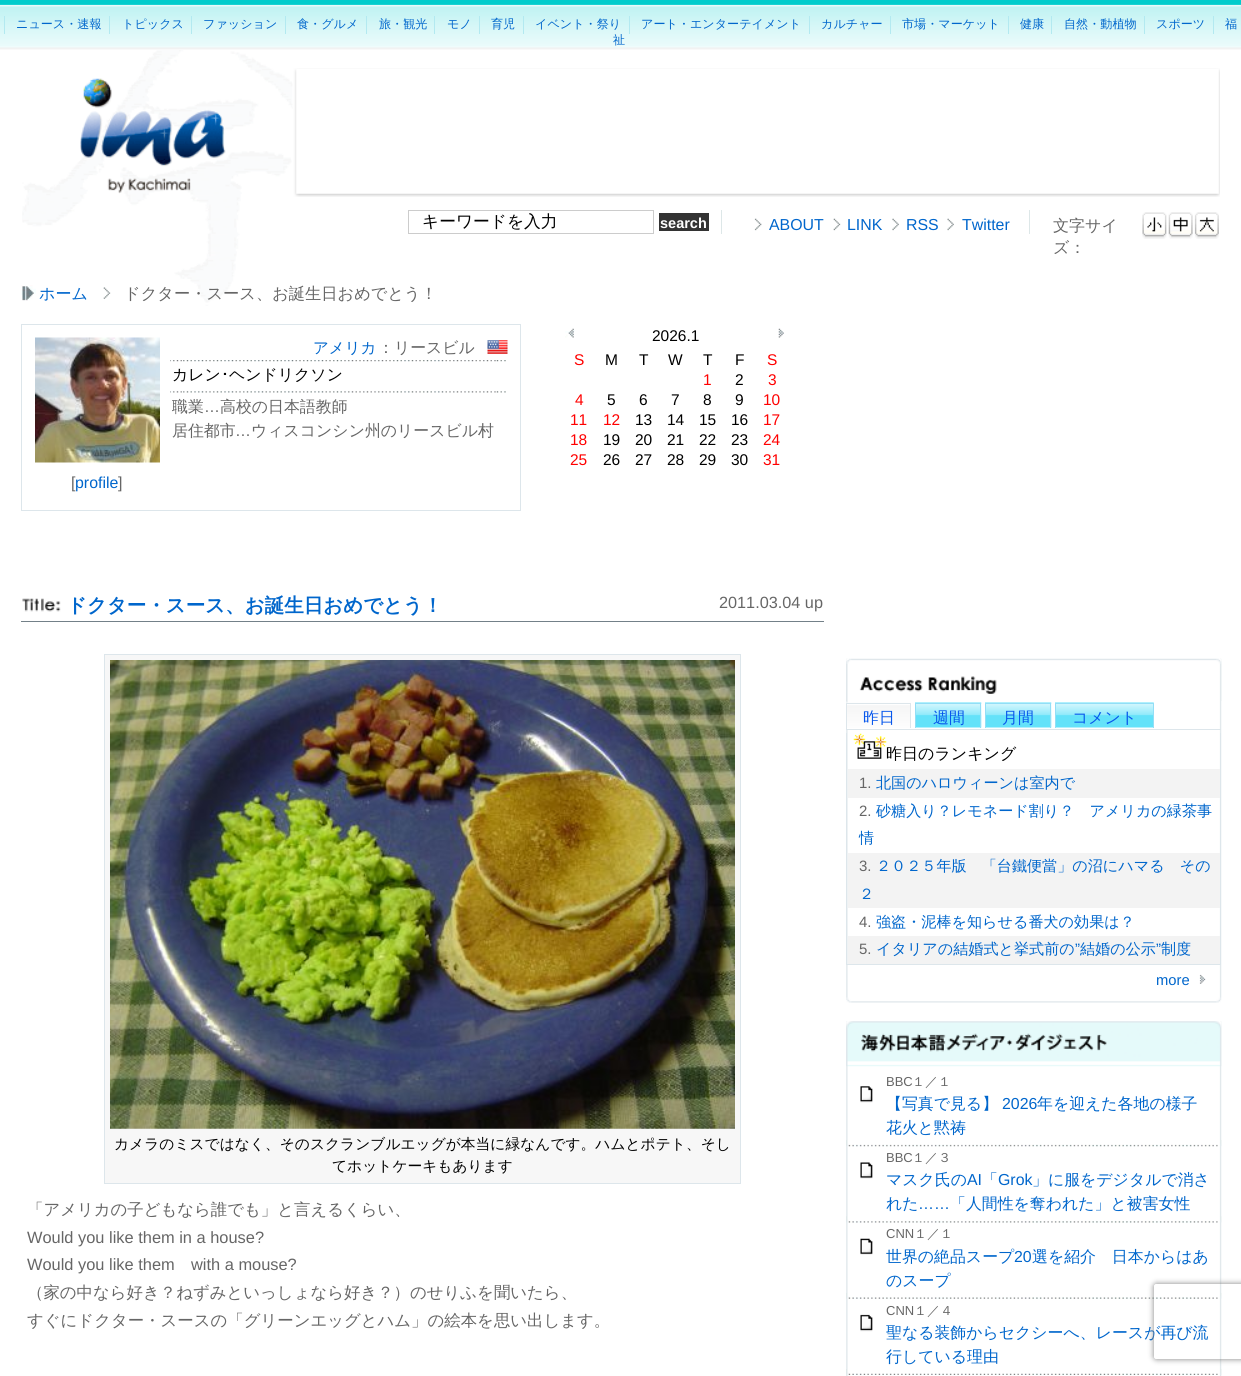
import math
import cairo

surface = cairo.ImageSurface(cairo.FORMAT_RGB24, 1241, 1376)
c = cairo.Context(surface)
options = cairo.FontOptions()
options.set_hint_metrics(cairo.HINT_METRICS_OFF)
options.set_hint_style(cairo.HINT_STYLE_NONE)
c.set_font_options(options)
c.set_miter_limit(4)
def C(code):
 c.set_source_rgb(*(v / 255 for v in bytes.fromhex(code[-6:])))
def F(family, size, italic, bold):
 c.select_font_face(family, cairo.FONT_SLANT_ITALIC if italic else cairo.FONT_SLANT_NORMAL, cairo.FONT_WEIGHT_BOLD if bold else cairo.FONT_WEIGHT_NORMAL)
 c.set_font_size(size)
def T(x, y, s):
 c.move_to(x, y)
 c.show_text(s)
def R(x, y, w, h):
 c.rectangle(x, y, w, h)
 c.fill()
def Q(x, y, w, h, r):
 c.new_sub_path()
 for i, (u, v) in enumerate([(x + w - r, y + h - r), (x + r, y + h - r), (x + r, y + r), (x + w - r, y + r)]):
  c.arc(u, v, r, i * math.pi / 2, (i + 1) * math.pi / 2)
 c.close_path()
def S(x, y, w, h, r, blur, alpha):
 c.push_group_with_content(cairo.CONTENT_ALPHA)
 c.set_operator(cairo.OPERATOR_SOURCE)
 for i in range(15, -16, -2):
  e = blur * i / 6
  if min(w, h) + 2 * e > 0:
   c.set_source_rgba(0, 0, 0, alpha * math.erfc((i - 1) / 8.5) / 2)
   Q(x - e, y - e, w + 2 * e, h + 2 * e, max(0, min(r + e + blur * .6, min(w, h) / 2 + e)))
   c.fill()
 c.mask(c.pop_group())
def I(path, x, y, w, h):
 c.save()
 c.set_source_surface(cairo.ImageSurface.create_from_png(path), x, y)
 c.rectangle(x, y, w, h)
 c.fill()
 c.restore()
C('ffffff')
c.paint()
C('00cccc')
R(0,0,1241,3)
I('1.png',0,3,1241,47)
F('WenQuanYi Zen Hei Medium',12.1,0,0)
C('0066cc')
T(16,28,'ニュース・速報')
C('b3e9f0')
R(4,16,1,18)
C('0066cc')
T(122,28,'トピックス')
C('b3e9f0')
R(109,16,1,18)
C('0066cc')
T(203,28,'ファッション')
C('b3e9f0')
R(191,16,1,18)
C('0066cc')
T(297,28,'食・グルメ')
C('b3e9f0')
R(285,16,1,18)
C('0066cc')
T(379,28,'旅・観光')
C('b3e9f0')
R(366,16,1,18)
C('0066cc')
T(447,28,'モノ')
C('b3e9f0')
R(434,16,1,18)
C('0066cc')
T(491,28,'育児')
C('b3e9f0')
R(479,16,1,18)
C('0066cc')
T(535,28,'イベント・祭り')
C('b3e9f0')
R(523,16,1,18)
C('0066cc')
T(641,28,'アート・エンターテイメント')
C('b3e9f0')
R(629,16,1,18)
C('0066cc')
T(821,28,'カルチャー')
C('b3e9f0')
R(809,16,1,18)
C('0066cc')
T(902,28,'市場・マーケット')
C('b3e9f0')
R(890,16,1,18)
C('0066cc')
T(1020,28,'健康')
C('b3e9f0')
R(1008,16,1,18)
C('0066cc')
T(1064,28,'自然・動植物')
C('b3e9f0')
R(1051,16,1,18)
C('0066cc')
T(1156,28,'スポーツ')
C('b3e9f0')
R(1144,16,1,18)
C('0066cc')
T(1225,28,'福')
C('b3e9f0')
R(1213,16,1,18)
C('0066cc')
T(613,44,'祉')
I('2.png',22,50,432,256)
I('3.png',80,78,146,116)
I('4.png',292,68,928,129)
c.rectangle(408.5,210.5,245,23)
C('cccccc')
c.set_line_width(1)
c.stroke()
F('WenQuanYi Zen Hei Medium',16.75,0,0)
C('000000')
T(422,227,'キーワードを入力')
C('333333')
R(659,213,50,18)
F('Liberation Sans',14.5,0,1)
C('ffffff')
T(660,228,'search')
C('dde7e8')
R(1029,210,1,24)
R(721,210,1,24)
I('5.png',754,218,8,13)
F('Liberation Sans',15.9,0,0)
C('0066cc')
T(769,230,'ABOUT')
I('6.png',833,218,8,13)
T(847,230,'LINK')
I('7.png',892,218,7,13)
T(906,230,'RSS')
I('8.png',947,218,7,13)
T(962,230,'Twitter')
F('WenQuanYi Zen Hei Medium',16,0,0)
C('666666')
T(1053,231,'文字サイ')
T(1053,253,'ズ：')
I('9.png',1142,212,25,27)
I('10.png',1168,212,25,27)
I('11.png',1194,212,25,27)
I('12.png',21,285,15,16)
C('0066cc')
T(39,299,'ホーム')
I('13.png',103,287,8,12)
F('WenQuanYi Zen Hei Medium',16.25,0,0)
C('666666')
T(124,299,'ドクター・スース、お誕生日おめでとう！')
c.rectangle(21.5,324.5,499,186)
C('dde6eb')
c.stroke()
F('WenQuanYi Zen Hei Medium',15.5,0,0)
C('0066cc')
T(313,353,'アメリカ')
F('WenQuanYi Zen Hei Medium',15.9,0,0)
C('666666')
T(378,353,'：リースビル')
I('14.png',487,340,21,14)
I('15.png',170,360,336,2)
C('000000')
T(172,380,'カレン')
F('IPAPGothic',15.9,0,0)
T(221,380,'･')
F('WenQuanYi Zen Hei Medium',15.9,0,0)
T(229,380,'ヘンドリクソン')
I('16.png',170,391,336,2)
C('666666')
T(172,412,'職業')
F('Liberation Sans',15.9,0,0)
T(204,412,'…')
F('WenQuanYi Zen Hei Medium',15.9,0,0)
T(220,412,'高校の日本語教師')
T(172,436,'居住都市')
F('Liberation Sans',15.9,0,0)
T(235,436,'…')
F('WenQuanYi Zen Hei Medium',15.9,0,0)
T(251,436,'ウィスコンシン州のリースビル村')
I('17.png',35,337,125,126)
F('Liberation Sans',16,0,0)
T(71,488,'[')
F('Liberation Sans',15.9,0,0)
C('0066cc')
T(75,488,'profile')
F('Liberation Sans',16,0,0)
C('666666')
T(118,488,']')
I('18.png',565,328,10,10)
F('Liberation Sans',15.5,0,0)
C('000000')
T(652,341,'2026.1')
I('19.png',778,328,6,10)
C('ff0000')
T(574,365,'S')
C('000000')
T(605,365,'M')
T(639,365,'T')
T(668,365,'W')
T(703,365,'T')
T(735,365,'F')
C('ff0000')
T(767,365,'S')
T(703,385,'1')
C('000000')
T(735,385,'2')
C('ff0000')
T(768,385,'3')
T(575,405,'4')
C('000000')
T(607,405,'5')
T(639,405,'6')
T(671,405,'7')
T(703,405,'8')
T(735,405,'9')
C('ff0000')
T(763,405,'10')
T(570,425,'11')
T(603,425,'12')
C('000000')
T(635,425,'13')
T(667,425,'14')
T(699,425,'15')
T(731,425,'16')
C('ff0000')
T(763,425,'17')
T(570,445,'18')
C('000000')
T(603,445,'19')
T(635,445,'20')
T(667,445,'21')
T(699,445,'22')
T(731,445,'23')
C('ff0000')
T(763,445,'24')
T(570,465,'25')
C('000000')
T(603,465,'26')
T(635,465,'27')
T(667,465,'28')
T(699,465,'29')
T(731,465,'30')
C('ff0000')
T(763,465,'31')
C('738088')
R(21,621,803,1)
I('20.png',22,598,39,14)
F('WenQuanYi Zen Hei',19.5,0,1)
C('0066cc')
T(67,612,'ドクター・スース、お誕生日おめでとう！')
F('Liberation Sans',16.25,0,0)
C('666666')
T(719,608,'2011.03.04 up')
C('f7f7f7')
c.rectangle(104.5,654.5,636,529)
c.fill_preserve()
C('dde6eb')
c.stroke()
I('21.png',110,660,625,469)
F('WenQuanYi Zen Hei Medium',14.75,0,0)
C('000000')
T(114,1149,'カメラのミスではなく、そのスクランブルエッグが本当に緑なんです。ハムとポテト、そし')
T(332,1171,'てホットケーキもあります')
F('WenQuanYi Zen Hei Medium',16.4,0,0)
C('666666')
T(27,1215,'「アメリカの子どもなら誰でも」と言えるくらい、')
F('Liberation Sans',16.4,0,0)
T(27,1243,'Would you like them in a house?')
T(27,1270,'Would you like them')
T(191,1270,'with a mouse?')
F('WenQuanYi Zen Hei Medium',16.4,0,0)
T(27,1298,'（家の中なら好き？ねずみといっしょなら好き？）のせりふを聞いたら、')
T(27,1326,'すぐにドクター・スースの「グリーンエッグとハム」の絵本を思い出します。')
I('22.png',846,658,376,345)
I('23.png',846,658,376,43)
C('dde6eb')
R(846,729,375,1)
I('24.png',846,702,65,26)
I('25.png',915,702,67,26)
I('25.png',985,702,67,26)
I('26.png',1055,702,99,26)
F('WenQuanYi Zen Hei Medium',15.9,0,0)
C('0757ec')
T(863,723,'昨日')
C('dde6eb')
R(846,703,65,1)
R(910,703,1,26)
C('ffffff')
R(846,728,65,1)
C('dde6eb')
R(846,703,1,26)
C('0757ec')
T(933,723,'週間')
C('92def6')
R(915,703,66,1)
R(980,703,1,25)
R(915,703,1,25)
C('0757ec')
T(1002,723,'月間')
C('92def6')
R(985,703,66,1)
R(1050,703,1,25)
R(985,703,1,25)
C('0757ec')
T(1072,723,'コメント')
C('92def6')
R(1055,703,99,1)
R(1153,703,1,25)
R(1055,703,1,25)
C('dde6eb')
R(1220,733,1,232)
R(846,964,375,1)
R(846,733,1,232)
I('27.png',853,733,34,26)
F('WenQuanYi Zen Hei Medium',16,0,0)
C('000000')
T(886,759,'昨日のランキング')
C('f3f3f3')
R(848,769,372,29)
F('Liberation Sans',15,0,0)
C('666666')
T(859,788,'1.')
F('WenQuanYi Zen Hei Medium',15.1,0,0)
C('0066cc')
T(876,788,'北国のハロウィーンは室内で')
F('Liberation Sans',15,0,0)
C('666666')
T(859,816,'2.')
F('WenQuanYi Zen Hei Medium',15.1,0,0)
C('0066cc')
T(876,816,'砂糖入り？レモネード割り？　アメリカの緑茶事')
T(859,843,'情')
C('f3f3f3')
R(848,853,372,55)
F('Liberation Sans',15,0,0)
C('666666')
T(859,871,'3.')
F('WenQuanYi Zen Hei Medium',15.1,0,0)
C('0066cc')
T(876,871,'２０２５年版　「台鐵便當」の沼にハマる　その')
T(859,899,'２')
F('Liberation Sans',15,0,0)
C('666666')
T(859,927,'4.')
F('WenQuanYi Zen Hei Medium',15.1,0,0)
C('0066cc')
T(876,927,'強盗・泥棒を知らせる番犬の効果は？')
C('f3f3f3')
R(848,936,372,28)
F('Liberation Sans',15,0,0)
C('666666')
T(859,954,'5.')
F('WenQuanYi Zen Hei Medium',15.1,0,0)
C('0066cc')
T(876,954,'イタリアの結婚式と挙式前の')
F('Liberation Sans',15.1,0,0)
T(1075,954,'”')
F('WenQuanYi Zen Hei Medium',15.1,0,0)
T(1080,954,'結婚の公示')
F('Liberation Sans',15.1,0,0)
T(1156,954,'”')
F('WenQuanYi Zen Hei Medium',15.1,0,0)
T(1161,954,'制度')
F('Liberation Sans',14.75,0,0)
T(1156,985,'more')
I('28.png',1199,974,7,10)
I('29.png',846,1021,376,355)
I('30.png',846,1021,376,46)
I('31.png',846,1140,376,7)
I('32.png',860,1086,13,17)
F('Liberation Sans',13,0,0)
C('666666')
T(886,1086,'BBC')
F('WenQuanYi Zen Hei Medium',13,0,0)
T(912,1086,'１／１')
F('WenQuanYi Zen Hei Medium',15.9,0,0)
C('0066cc')
T(886,1109,'【写真で見る】')
F('Liberation Sans',15.9,0,0)
T(1002,1109,'2026')
F('WenQuanYi Zen Hei Medium',15.9,0,0)
T(1037,1109,'年を迎えた各地の様子')
T(886,1133,'花火と黙祷')
I('33.png',846,1216,376,7)
I('34.png',860,1162,13,17)
F('Liberation Sans',13,0,0)
C('666666')
T(886,1162,'BBC')
F('WenQuanYi Zen Hei Medium',13,0,0)
T(912,1162,'１／３')
F('WenQuanYi Zen Hei Medium',15.9,0,0)
C('0066cc')
T(886,1185,'マスク氏の')
F('Liberation Sans',15.9,0,0)
T(967,1185,'AI')
F('WenQuanYi Zen Hei Medium',15.9,0,0)
T(982,1185,'「')
F('Liberation Sans',15.9,0,0)
T(998,1185,'Grok')
F('WenQuanYi Zen Hei Medium',15.9,0,0)
T(1032,1185,'」に服をデジタルで消さ')
T(886,1209,'れた')
F('Liberation Sans',15.9,0,0)
T(918,1209,'……')
F('WenQuanYi Zen Hei Medium',15.9,0,0)
T(950,1209,'「人間性を奪われた」と被害女性')
I('35.png',846,1293,376,6)
I('36.png',860,1238,13,17)
F('Liberation Sans',13,0,0)
C('666666')
T(886,1238,'CNN')
F('WenQuanYi Zen Hei Medium',13,0,0)
T(914,1238,'１／１')
F('WenQuanYi Zen Hei Medium',15.9,0,0)
C('0066cc')
T(886,1262,'世界の絶品スープ')
F('Liberation Sans',15.9,0,0)
T(1014,1262,'20')
F('WenQuanYi Zen Hei Medium',15.9,0,0)
T(1032,1262,'選を紹介　日本からはあ')
T(886,1286,'のスープ')
I('37.png',846,1369,376,6)
I('38.png',860,1314,13,18)
F('Liberation Sans',13,0,0)
C('666666')
T(886,1315,'CNN')
F('WenQuanYi Zen Hei Medium',13,0,0)
T(914,1315,'１／４')
F('WenQuanYi Zen Hei Medium',15.9,0,0)
C('0066cc')
T(886,1338,'聖なる装飾からセクシーへ、レースが再び流')
T(886,1362,'行している理由')
c.save()
c.set_fill_rule(cairo.FILL_RULE_EVEN_ODD)
c.new_path()
c.move_to(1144,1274)
c.line_to(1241,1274)
c.line_to(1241,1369)
c.line_to(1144,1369)
c.close_path()
c.move_to(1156.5,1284)
c.line_to(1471.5,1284)
c.curve_to(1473,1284,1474,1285,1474,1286.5)
c.line_to(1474,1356.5)
c.curve_to(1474,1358,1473,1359,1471.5,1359)
c.line_to(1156.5,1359)
c.curve_to(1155,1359,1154,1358,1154,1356.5)
c.line_to(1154,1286.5)
c.curve_to(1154,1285,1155,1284,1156.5,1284)
c.close_path()
c.clip()
C('808080')
S(1154,1284,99,75,2.5,3,1)
c.restore()
surface.write_to_png('o.png')
